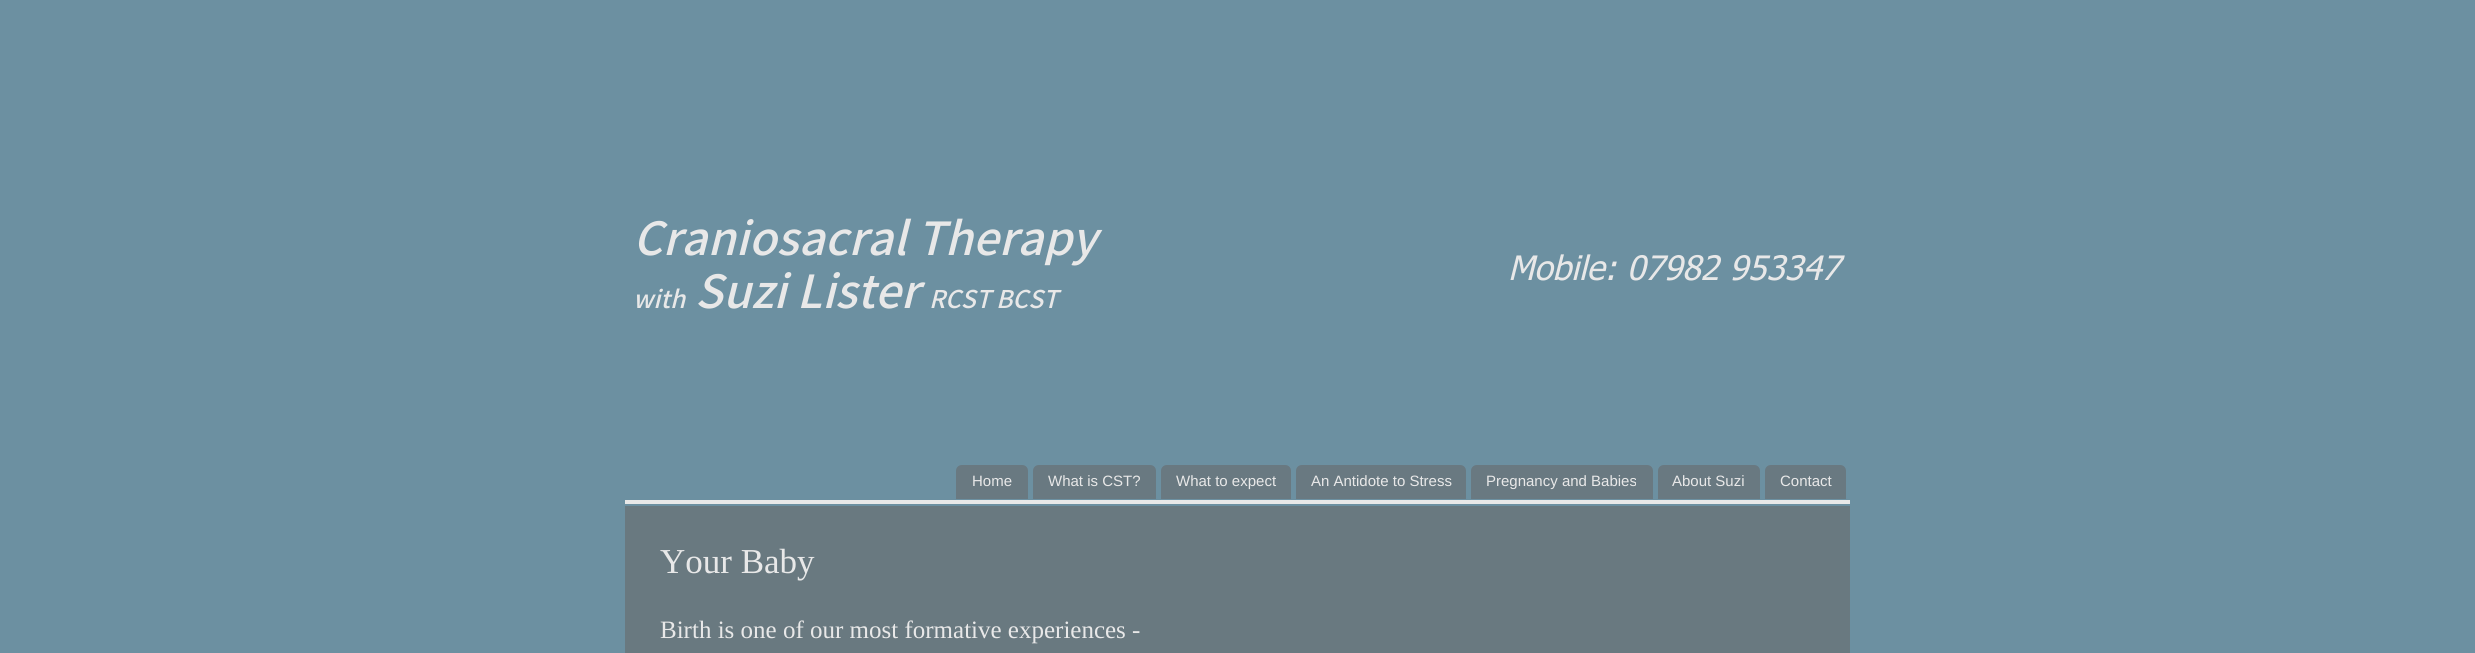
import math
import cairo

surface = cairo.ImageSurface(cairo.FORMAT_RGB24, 2475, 653)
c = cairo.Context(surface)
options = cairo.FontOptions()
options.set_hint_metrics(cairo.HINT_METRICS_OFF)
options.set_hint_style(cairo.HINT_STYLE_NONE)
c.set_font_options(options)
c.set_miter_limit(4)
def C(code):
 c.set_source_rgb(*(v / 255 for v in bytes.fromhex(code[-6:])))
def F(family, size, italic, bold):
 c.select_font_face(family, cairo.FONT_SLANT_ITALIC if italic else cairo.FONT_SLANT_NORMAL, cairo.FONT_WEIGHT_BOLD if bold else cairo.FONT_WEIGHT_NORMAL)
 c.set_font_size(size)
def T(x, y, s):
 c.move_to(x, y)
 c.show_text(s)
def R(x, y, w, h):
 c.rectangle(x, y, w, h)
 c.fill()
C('6c90a1')
c.paint()
F('Assistant SemiBold',51.25,1,0)
C('e8e8e8')
T(633,255,'Craniosacral Therapy')
F('Assistant SemiBold',27.5,1,0)
T(633,308,'with')
F('Assistant SemiBold',51.25,1,0)
T(695,308,'Suzi Lister')
F('Assistant SemiBold',27.5,1,0)
T(929,308,'RCST BCST')
F('tahoma',33.75,1,0)
T(1508,280,'Mobile: 07982 953347')
C('697981')
c.new_path()
c.move_to(962,465)
c.line_to(1022,465)
c.curve_to(1025.5,465,1028,467.5,1028,471)
c.line_to(1028,499)
c.line_to(956,499)
c.line_to(956,471)
c.curve_to(956,467.5,958.5,465,962,465)
c.close_path()
c.fill()
F('Liberation Sans',15,0,0)
C('e8e8e8')
T(972,486,'Home')
C('697981')
c.new_path()
c.move_to(1039,465)
c.line_to(1150,465)
c.curve_to(1153.5,465,1156,467.5,1156,471)
c.line_to(1156,499)
c.line_to(1033,499)
c.line_to(1033,471)
c.curve_to(1033,467.5,1035.5,465,1039,465)
c.close_path()
c.fill()
C('e8e8e8')
T(1048,486,'What is CST?')
C('697981')
c.new_path()
c.move_to(1167,465)
c.line_to(1285,465)
c.curve_to(1288.5,465,1291,467.5,1291,471)
c.line_to(1291,499)
c.line_to(1161,499)
c.line_to(1161,471)
c.curve_to(1161,467.5,1163.5,465,1167,465)
c.close_path()
c.fill()
C('e8e8e8')
T(1176,486,'What to expect')
C('697981')
c.new_path()
c.move_to(1302,465)
c.line_to(1460,465)
c.curve_to(1463.5,465,1466,467.5,1466,471)
c.line_to(1466,499)
c.line_to(1296,499)
c.line_to(1296,471)
c.curve_to(1296,467.5,1298.5,465,1302,465)
c.close_path()
c.fill()
C('e8e8e8')
T(1311,486,'An Antidote to Stress')
C('697981')
c.new_path()
c.move_to(1477,465)
c.line_to(1647,465)
c.curve_to(1650.5,465,1653,467.5,1653,471)
c.line_to(1653,499)
c.line_to(1471,499)
c.line_to(1471,471)
c.curve_to(1471,467.5,1473.5,465,1477,465)
c.close_path()
c.fill()
C('e8e8e8')
T(1486,486,'Pregnancy and Babies')
C('697981')
c.new_path()
c.move_to(1664,465)
c.line_to(1754,465)
c.curve_to(1757.5,465,1760,467.5,1760,471)
c.line_to(1760,499)
c.line_to(1658,499)
c.line_to(1658,471)
c.curve_to(1658,467.5,1660.5,465,1664,465)
c.close_path()
c.fill()
C('e8e8e8')
T(1672,486,'About Suzi')
C('697981')
c.new_path()
c.move_to(1771,465)
c.line_to(1840,465)
c.curve_to(1843.5,465,1846,467.5,1846,471)
c.line_to(1846,499)
c.line_to(1765,499)
c.line_to(1765,471)
c.curve_to(1765,467.5,1767.5,465,1771,465)
c.close_path()
c.fill()
C('e8e8e8')
T(1780,486,'Contact')
R(625,500,1225,4)
C('697980')
R(625,506,1225,147)
F('Liberation Serif',35,0,0)
C('e8e8e8')
T(660,573,'Your Baby')
F('Liberation Serif',25,0,0)
T(660,638,'Birth is one of our most formative experiences -')
surface.write_to_png('o.png')
